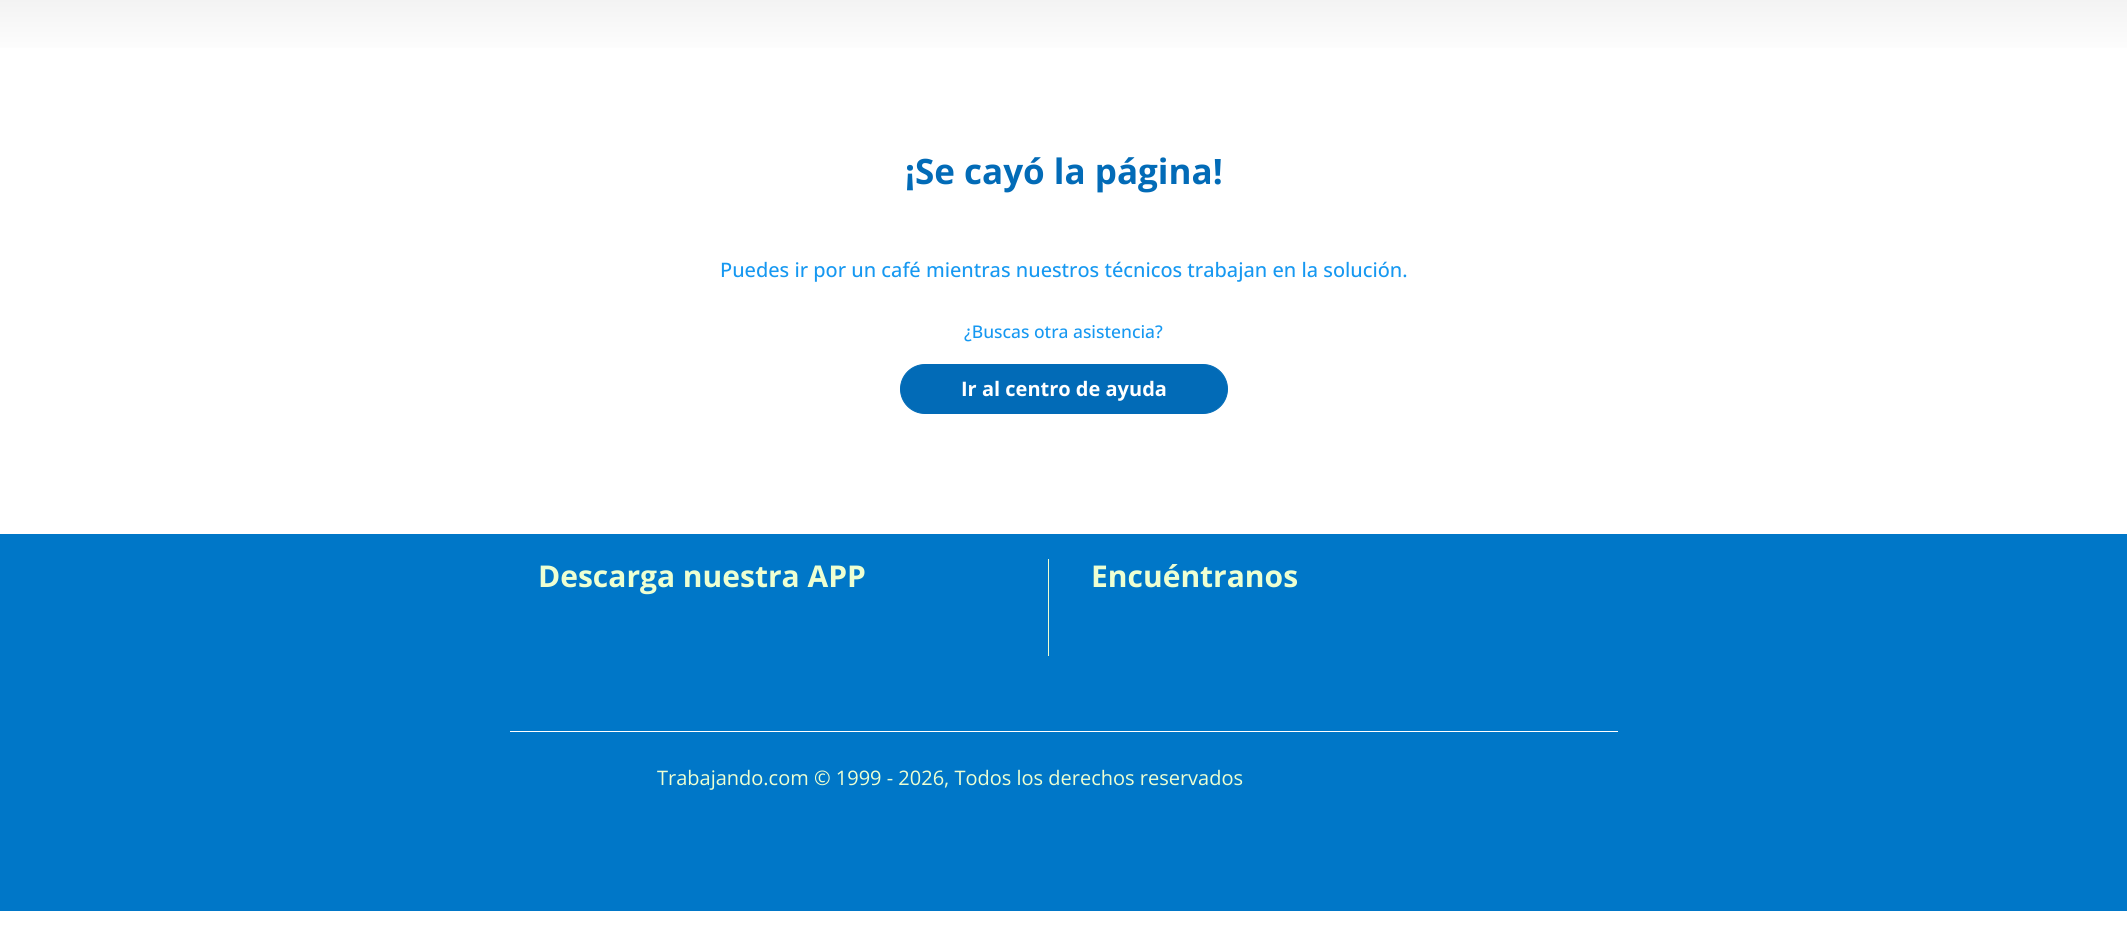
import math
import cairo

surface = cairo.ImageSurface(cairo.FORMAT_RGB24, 2127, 942)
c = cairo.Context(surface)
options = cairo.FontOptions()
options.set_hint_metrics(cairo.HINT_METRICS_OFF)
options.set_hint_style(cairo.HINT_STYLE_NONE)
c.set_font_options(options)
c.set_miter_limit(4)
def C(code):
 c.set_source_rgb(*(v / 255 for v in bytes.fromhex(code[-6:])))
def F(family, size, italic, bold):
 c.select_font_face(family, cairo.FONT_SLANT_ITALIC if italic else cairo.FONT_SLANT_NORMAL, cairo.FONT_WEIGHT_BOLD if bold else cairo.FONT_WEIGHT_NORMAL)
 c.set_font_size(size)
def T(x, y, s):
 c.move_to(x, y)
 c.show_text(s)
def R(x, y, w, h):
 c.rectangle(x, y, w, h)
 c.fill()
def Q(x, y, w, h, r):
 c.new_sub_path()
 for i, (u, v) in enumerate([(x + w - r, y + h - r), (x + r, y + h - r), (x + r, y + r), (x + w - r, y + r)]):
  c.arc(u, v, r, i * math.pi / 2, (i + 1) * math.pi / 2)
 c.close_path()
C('ffffff')
c.paint()
gradient = cairo.LinearGradient(1064,0,1064,100)
gradient.add_color_stop_rgba(0,0.953,0.953,0.953,1)
gradient.add_color_stop_rgba(.6,1,1,1,1)
c.set_source(gradient)
R(0,0,2127,48)
F('Open Sans',35,0,1)
C('026bb7')
T(905,184,'¡Se cayó la página!')
F('Open Sans Medium',19.95,0,0)
C('1698f1')
T(720,277,'Puedes ir por un café mientras nuestros técnicos trabajan en la solución.')
F('Open Sans Medium',17.5,0,0)
T(964,338,'¿Buscas otra asistencia?')
C('026bb7')
Q(900.5,364.5,327,49,24.5)
c.fill_preserve()
c.set_line_width(1)
c.stroke()
F('Open Sans',20,0,1)
C('ffffff')
T(961,396,'Ir al centro de ayuda')
C('0077c8')
R(0,534,2127,377)
C('edffd2')
R(1048,559,1,97)
F('Open Sans',30,0,1)
T(538,587,'Descarga nuestra APP')
T(1091,587,'Encuéntranos')
C('ffffff')
R(510,731,1108,1)
F('Open Sans',20,0,0)
C('edffd2')
T(657,785,'Trabajando.com © 1999 - 2026, Todos los derechos reservados')
surface.write_to_png('o.png')
